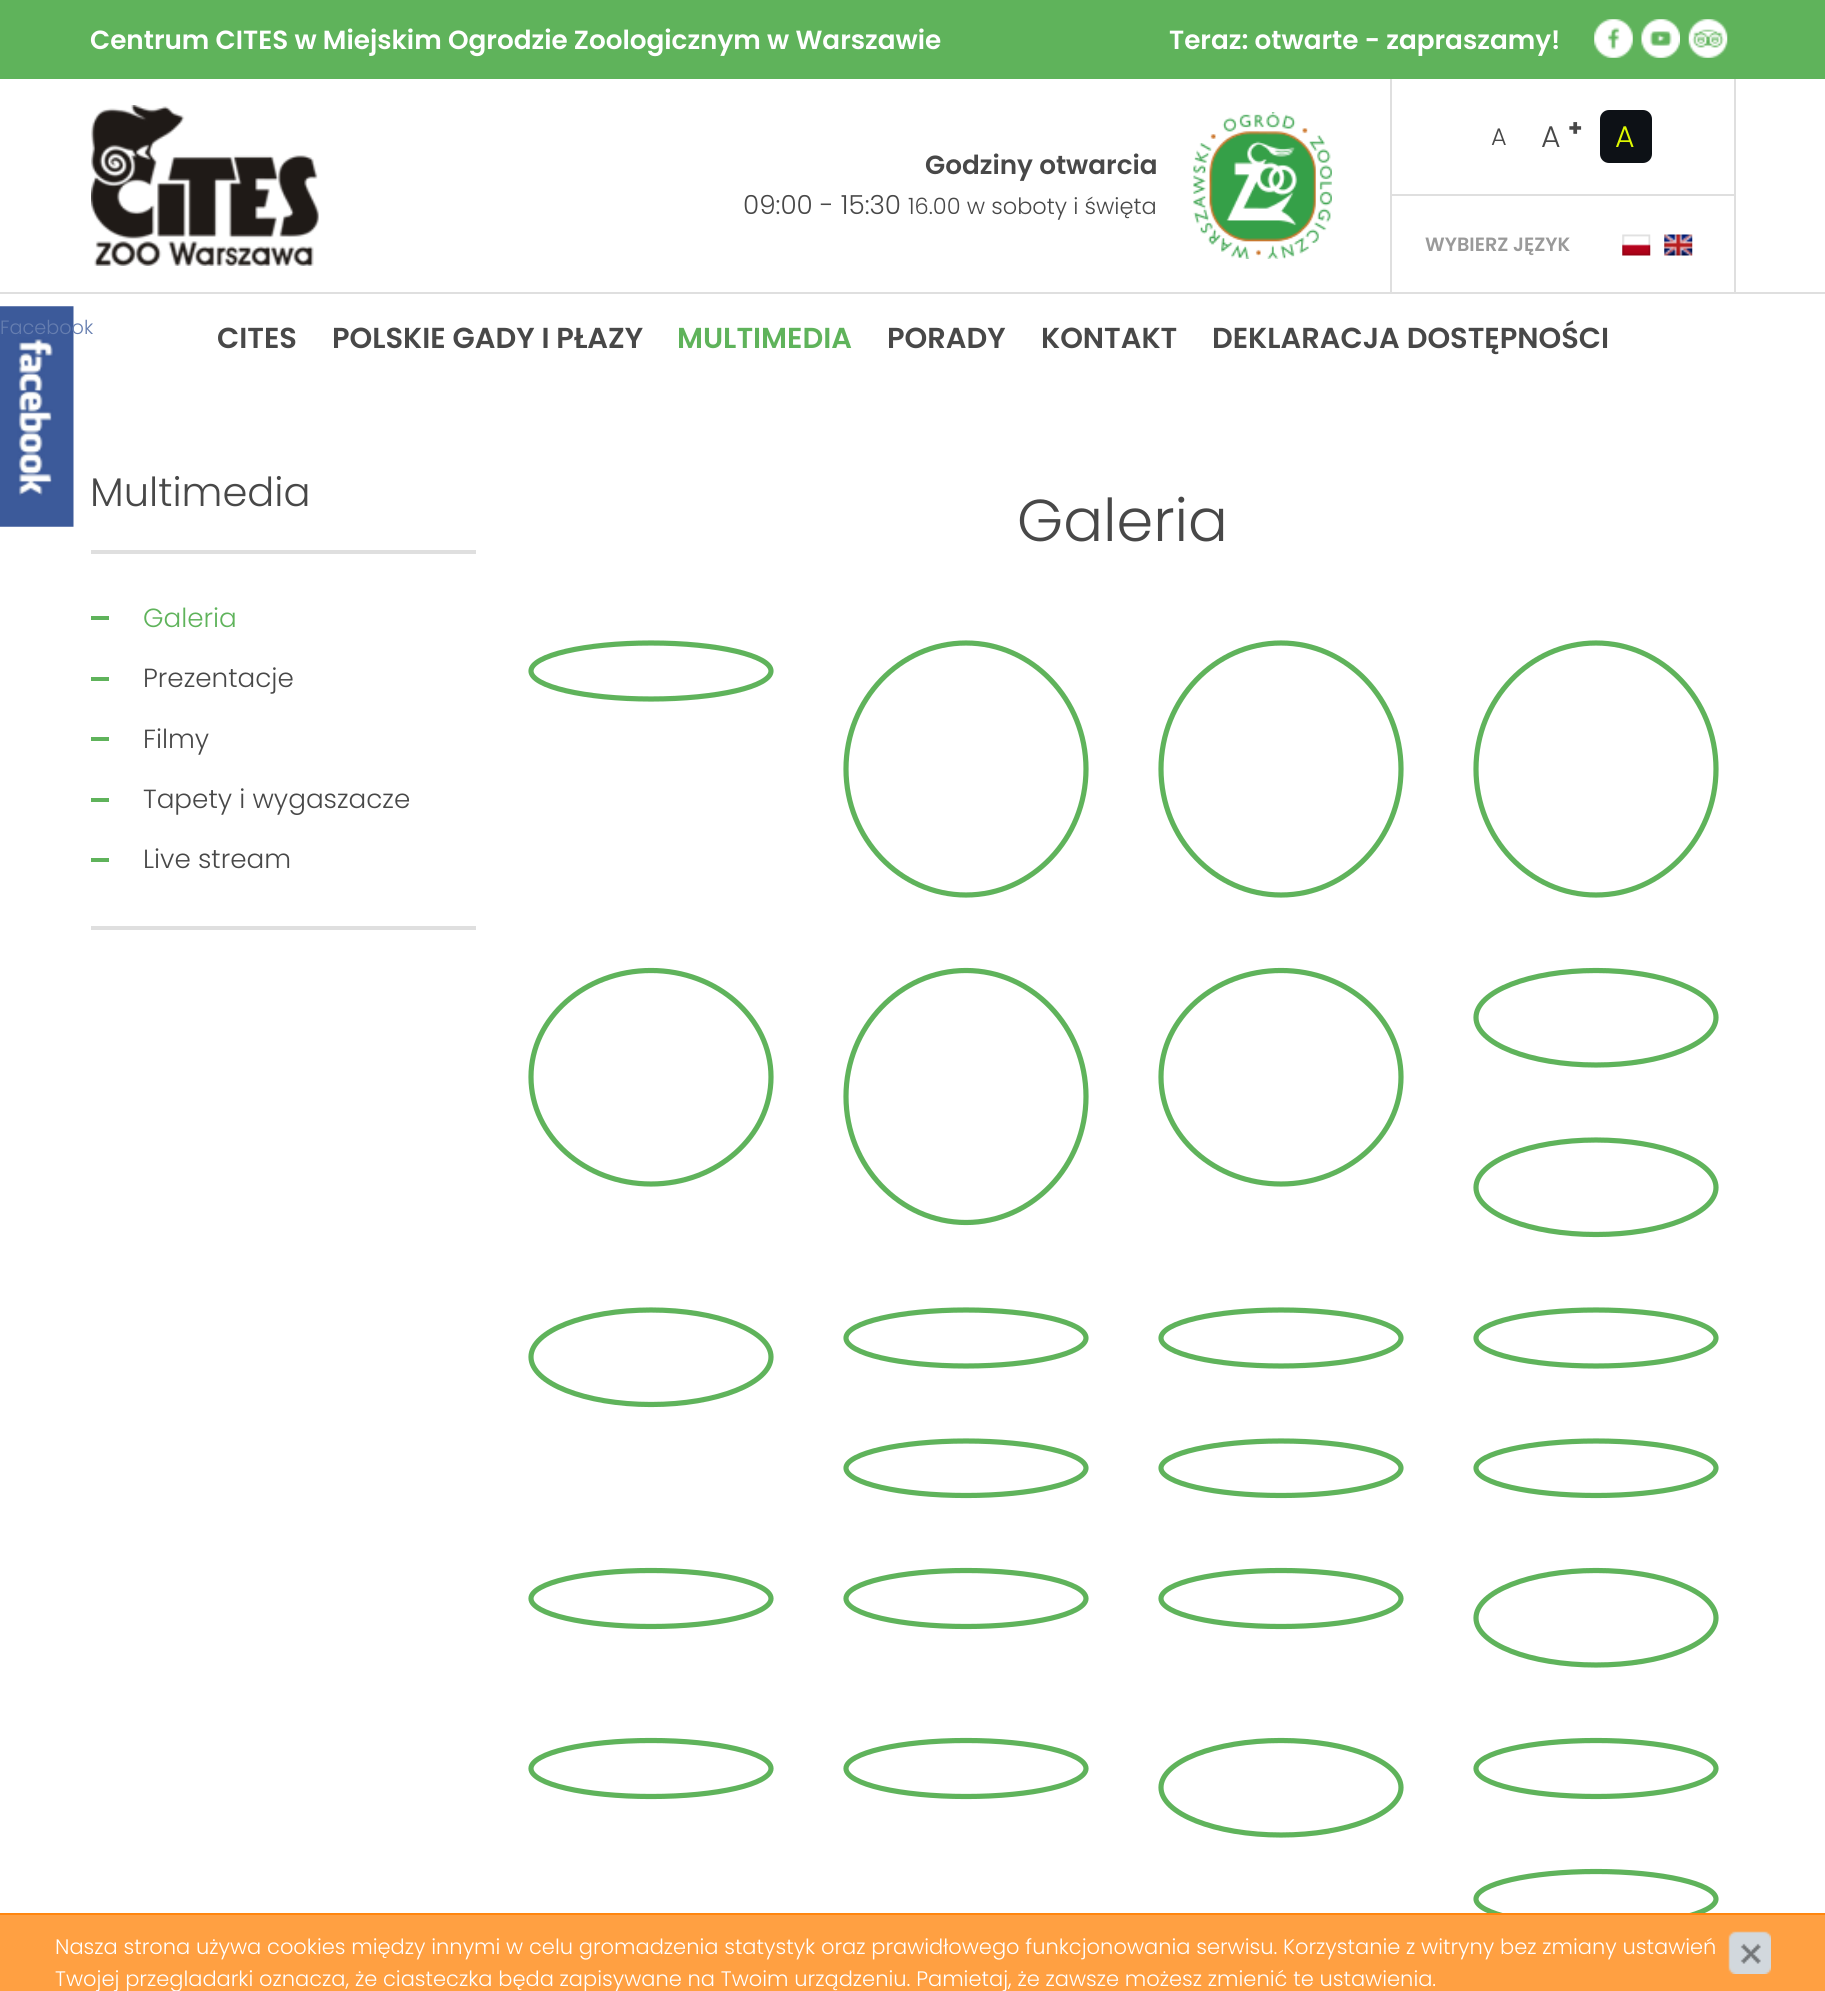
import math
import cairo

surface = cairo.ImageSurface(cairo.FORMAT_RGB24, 1825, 1991)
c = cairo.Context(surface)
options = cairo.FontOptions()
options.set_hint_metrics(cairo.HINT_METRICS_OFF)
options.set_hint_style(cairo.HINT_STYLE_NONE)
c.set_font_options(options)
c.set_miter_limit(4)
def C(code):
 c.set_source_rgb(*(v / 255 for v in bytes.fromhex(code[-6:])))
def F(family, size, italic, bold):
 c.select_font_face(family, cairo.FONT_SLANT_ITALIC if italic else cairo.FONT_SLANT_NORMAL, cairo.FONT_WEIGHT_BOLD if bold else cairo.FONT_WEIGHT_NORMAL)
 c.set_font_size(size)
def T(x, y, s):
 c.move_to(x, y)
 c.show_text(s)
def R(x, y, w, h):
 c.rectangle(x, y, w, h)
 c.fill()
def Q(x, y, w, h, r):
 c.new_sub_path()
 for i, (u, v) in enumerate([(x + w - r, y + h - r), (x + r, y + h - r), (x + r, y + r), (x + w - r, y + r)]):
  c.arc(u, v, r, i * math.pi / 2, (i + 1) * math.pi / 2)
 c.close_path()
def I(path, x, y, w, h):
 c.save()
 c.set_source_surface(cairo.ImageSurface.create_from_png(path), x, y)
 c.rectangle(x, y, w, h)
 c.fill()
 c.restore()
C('ffffff')
c.paint()
I('1.png',0,306,74,221)
F('Poppins Light',19.25,0,0)
C('667eb0')
T(0,334,'Facebook')
C('5fb35b')
R(0,0,1825,79)
F('Poppins SemiBold',26.25,0,0)
C('ffffff')
T(90,49,'Centrum CITES w Miejskim Ogrodzie Zoologicznym w Warszawie')
T(1169,49,'Teraz: otwarte - zapraszamy!')
I('2.png',1594,19,39,39)
I('3.png',1641,19,39,39)
I('4.png',1688,19,40,39)
C('dfdfdf')
R(0,292,1825,2)
I('5.png',91,105,228,161)
C('484848')
T(925,174,'Godziny otwarcia')
F('Poppins Light',26.25,0,0)
T(743,214,'09:00 - 15:30')
F('Poppins Light',22.5,0,0)
T(908,214,'16.00 w soboty i święta')
I('6.png',1193,112,139,147)
C('dfdfdf')
R(1734,79,2,213)
R(1390,79,2,213)
F('Poppins Light',24,0,0)
C('484848')
T(1491,145,'A')
F('Poppins Light',30,0,0)
T(1541,147,'A')
F('Poppins',23,0,1)
T(1568,136,'+')
C('0d1116')
Q(1600,110,52,53,9)
c.fill()
F('Poppins Light',30,0,0)
C('dff900')
T(1615,147,'A')
C('dfdfdf')
R(1391,194,343,2)
F('Poppins SemiBold',19.25,0,0)
C('9a9a9a')
T(1425,251,'WYBIERZ JĘZYK')
I('7.png',1622,234,29,22)
I('8.png',1664,234,29,22)
F('Poppins SemiBold',28.9,0,0)
C('484848')
T(217,348,'CITES')
T(332,348,'POLSKIE GADY I PŁAZY')
C('5fb35b')
T(677,348,'MULTIMEDIA')
C('484848')
T(887,348,'PORADY')
T(1041,348,'KONTAKT')
T(1212,348,'DEKLARACJA DOSTĘPNOŚCI')
F('Poppins Light',40,0,0)
T(90,506,'Multimedia')
C('dfdfdf')
R(91,550,385,4)
R(91,926,385,4)
C('5fb35b')
R(91,616,18,4)
F('Poppins Light',26.25,0,0)
T(143,627,'Galeria')
R(91,677,18,4)
C('484848')
T(143,687,'Prezentacje')
C('5fb35b')
R(91,737,18,4)
C('484848')
T(143,748,'Filmy')
C('5fb35b')
R(91,798,18,4)
C('484848')
T(143,808,'Tapety i wygaszacze')
C('5fb35b')
R(91,858,18,4)
C('484848')
T(143,868,'Live stream')
F('Poppins Light',59,0,0)
T(1017,541,'Galeria')
c.new_path()
c.move_to(651,643)
c.curve_to(717,643,771,655.5,771,671)
c.curve_to(771,686.5,717,699,651,699)
c.curve_to(585,699,531,686.5,531,671)
c.curve_to(531,655.5,585,643,651,643)
c.close_path()
C('5fb35b')
c.set_line_width(5.2)
c.stroke()
c.new_path()
c.move_to(966,643)
c.curve_to(1032,643,1086,699.5,1086,769)
c.curve_to(1086,838.5,1032,895,966,895)
c.curve_to(900,895,846,838.5,846,769)
c.curve_to(846,699.5,900,643,966,643)
c.close_path()
c.stroke()
c.new_path()
c.move_to(1281,643)
c.curve_to(1347,643,1401,699.5,1401,769)
c.curve_to(1401,838.5,1347,895,1281,895)
c.curve_to(1215,895,1161,838.5,1161,769)
c.curve_to(1161,699.5,1215,643,1281,643)
c.close_path()
c.stroke()
c.new_path()
c.move_to(1596,643)
c.curve_to(1662,643,1716,699.5,1716,769)
c.curve_to(1716,838.5,1662,895,1596,895)
c.curve_to(1530,895,1476,838.5,1476,769)
c.curve_to(1476,699.5,1530,643,1596,643)
c.close_path()
c.stroke()
c.new_path()
c.move_to(651,970.5)
c.curve_to(717,970.5,771,1018,771,1077)
c.curve_to(771,1136,717,1184,651,1184)
c.curve_to(585,1184,531,1136,531,1077)
c.curve_to(531,1018,585,970.5,651,970.5)
c.close_path()
c.stroke()
c.new_path()
c.move_to(966,970.5)
c.curve_to(1032,970.5,1086,1027,1086,1096.5)
c.curve_to(1086,1166,1032,1222.5,966,1222.5)
c.curve_to(900,1222.5,846,1166,846,1096.5)
c.curve_to(846,1027,900,970.5,966,970.5)
c.close_path()
c.stroke()
c.new_path()
c.move_to(1281,970.5)
c.curve_to(1347,970.5,1401,1018,1401,1077)
c.curve_to(1401,1136,1347,1184,1281,1184)
c.curve_to(1215,1184,1161,1136,1161,1077)
c.curve_to(1161,1018,1215,970.5,1281,970.5)
c.close_path()
c.stroke()
c.new_path()
c.move_to(1596,970.5)
c.curve_to(1662,970.5,1716,991.5,1716,1017.5)
c.curve_to(1716,1043.5,1662,1065,1596,1065)
c.curve_to(1530,1065,1476,1043.5,1476,1017.5)
c.curve_to(1476,991.5,1530,970.5,1596,970.5)
c.close_path()
c.stroke()
c.new_path()
c.move_to(1596,1140)
c.curve_to(1662,1140,1716,1161.5,1716,1187.5)
c.curve_to(1716,1213.5,1662,1234.5,1596,1234.5)
c.curve_to(1530,1234.5,1476,1213.5,1476,1187.5)
c.curve_to(1476,1161.5,1530,1140,1596,1140)
c.close_path()
c.stroke()
c.new_path()
c.move_to(651,1310)
c.curve_to(717,1310,771,1331,771,1357)
c.curve_to(771,1383,717,1404.5,651,1404.5)
c.curve_to(585,1404.5,531,1383,531,1357)
c.curve_to(531,1331,585,1310,651,1310)
c.close_path()
c.stroke()
c.new_path()
c.move_to(966,1310)
c.curve_to(1032,1310,1086,1322.5,1086,1338)
c.curve_to(1086,1353.5,1032,1366,966,1366)
c.curve_to(900,1366,846,1353.5,846,1338)
c.curve_to(846,1322.5,900,1310,966,1310)
c.close_path()
c.stroke()
c.new_path()
c.move_to(1281,1310)
c.curve_to(1347,1310,1401,1322.5,1401,1338)
c.curve_to(1401,1353.5,1347,1366,1281,1366)
c.curve_to(1215,1366,1161,1353.5,1161,1338)
c.curve_to(1161,1322.5,1215,1310,1281,1310)
c.close_path()
c.stroke()
c.new_path()
c.move_to(1596,1310)
c.curve_to(1662,1310,1716,1322.5,1716,1338)
c.curve_to(1716,1353.5,1662,1366,1596,1366)
c.curve_to(1530,1366,1476,1353.5,1476,1338)
c.curve_to(1476,1322.5,1530,1310,1596,1310)
c.close_path()
c.stroke()
c.new_path()
c.move_to(966,1441)
c.curve_to(1032,1441,1086,1453.5,1086,1468)
c.curve_to(1086,1483,1032,1495.5,966,1495.5)
c.curve_to(900,1495.5,846,1483,846,1468)
c.curve_to(846,1453.5,900,1441,966,1441)
c.close_path()
c.stroke()
c.new_path()
c.move_to(1281,1441)
c.curve_to(1347,1441,1401,1453.5,1401,1468)
c.curve_to(1401,1483,1347,1495.5,1281,1495.5)
c.curve_to(1215,1495.5,1161,1483,1161,1468)
c.curve_to(1161,1453.5,1215,1441,1281,1441)
c.close_path()
c.stroke()
c.new_path()
c.move_to(1596,1441)
c.curve_to(1662,1441,1716,1453.5,1716,1468)
c.curve_to(1716,1483,1662,1495.5,1596,1495.5)
c.curve_to(1530,1495.5,1476,1483,1476,1468)
c.curve_to(1476,1453.5,1530,1441,1596,1441)
c.close_path()
c.stroke()
c.new_path()
c.move_to(651,1570.5)
c.curve_to(717,1570.5,771,1583,771,1598.5)
c.curve_to(771,1614,717,1626.5,651,1626.5)
c.curve_to(585,1626.5,531,1614,531,1598.5)
c.curve_to(531,1583,585,1570.5,651,1570.5)
c.close_path()
c.stroke()
c.new_path()
c.move_to(966,1570.5)
c.curve_to(1032,1570.5,1086,1583,1086,1598.5)
c.curve_to(1086,1614,1032,1626.5,966,1626.5)
c.curve_to(900,1626.5,846,1614,846,1598.5)
c.curve_to(846,1583,900,1570.5,966,1570.5)
c.close_path()
c.stroke()
c.new_path()
c.move_to(1281,1570.5)
c.curve_to(1347,1570.5,1401,1583,1401,1598.5)
c.curve_to(1401,1614,1347,1626.5,1281,1626.5)
c.curve_to(1215,1626.5,1161,1614,1161,1598.5)
c.curve_to(1161,1583,1215,1570.5,1281,1570.5)
c.close_path()
c.stroke()
c.new_path()
c.move_to(1596,1570.5)
c.curve_to(1662,1570.5,1716,1592,1716,1618)
c.curve_to(1716,1644,1662,1665,1596,1665)
c.curve_to(1530,1665,1476,1644,1476,1618)
c.curve_to(1476,1592,1530,1570.5,1596,1570.5)
c.close_path()
c.stroke()
c.new_path()
c.move_to(651,1740.5)
c.curve_to(717,1740.5,771,1753,771,1768.5)
c.curve_to(771,1784,717,1796.5,651,1796.5)
c.curve_to(585,1796.5,531,1784,531,1768.5)
c.curve_to(531,1753,585,1740.5,651,1740.5)
c.close_path()
c.stroke()
c.new_path()
c.move_to(966,1740.5)
c.curve_to(1032,1740.5,1086,1753,1086,1768.5)
c.curve_to(1086,1784,1032,1796.5,966,1796.5)
c.curve_to(900,1796.5,846,1784,846,1768.5)
c.curve_to(846,1753,900,1740.5,966,1740.5)
c.close_path()
c.stroke()
c.new_path()
c.move_to(1281,1740.5)
c.curve_to(1347,1740.5,1401,1761.5,1401,1787.5)
c.curve_to(1401,1813.5,1347,1835,1281,1835)
c.curve_to(1215,1835,1161,1813.5,1161,1787.5)
c.curve_to(1161,1761.5,1215,1740.5,1281,1740.5)
c.close_path()
c.stroke()
c.new_path()
c.move_to(1596,1740.5)
c.curve_to(1662,1740.5,1716,1753,1716,1768.5)
c.curve_to(1716,1784,1662,1796.5,1596,1796.5)
c.curve_to(1530,1796.5,1476,1784,1476,1768.5)
c.curve_to(1476,1753,1530,1740.5,1596,1740.5)
c.close_path()
c.stroke()
c.new_path()
c.move_to(1596,1871.5)
c.curve_to(1662,1871.5,1716,1884,1716,1899)
c.curve_to(1716,1913.5,1662,1926,1596,1926)
c.curve_to(1530,1926,1476,1913.5,1476,1899)
c.curve_to(1476,1884,1530,1871.5,1596,1871.5)
c.close_path()
c.stroke()
C('ffa042')
R(0,1915,1825,76)
C('ff860f')
R(0,1913,1825,2)
F('Poppins Light',21,0,0)
C('ffffff')
T(55,1954,'Nasza strona używa cookies między innymi w celu gromadzenia statystyk oraz prawidłowego funkcjonowania serwisu. Korzystanie z witryny bez zmiany ustawień')
I('9.png',1728,1931,43,43)
T(55,1986,'Twojej przegladarki oznacza, że ciasteczka będa zapisywane na Twoim urządzeniu. Pamietaj, że zawsze możesz zmienić te ustawienia.')
surface.write_to_png('o.png')
